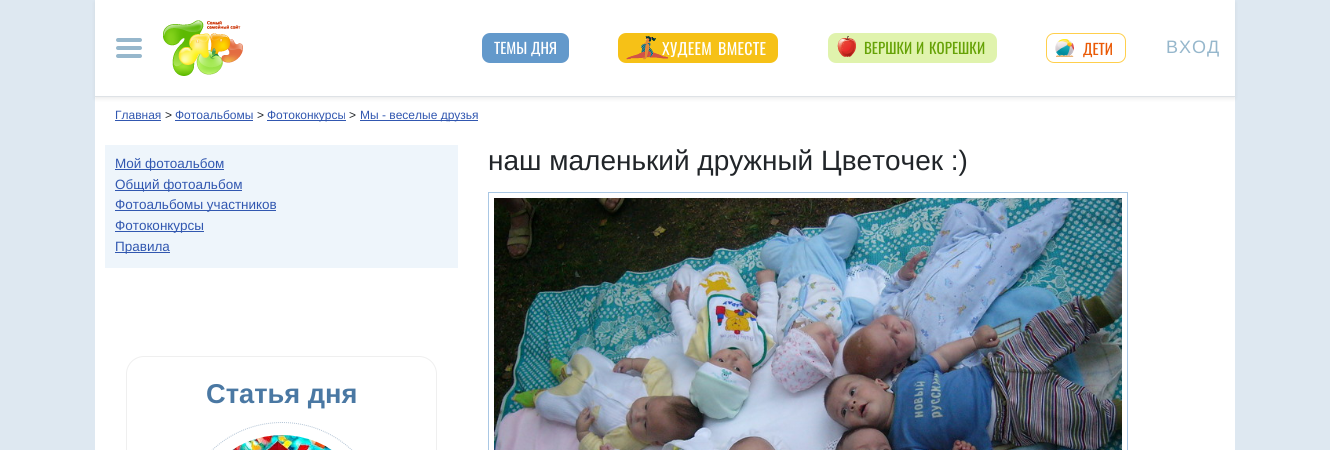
import math
import cairo

surface = cairo.ImageSurface(cairo.FORMAT_RGB24, 1330, 450)
c = cairo.Context(surface)
options = cairo.FontOptions()
options.set_hint_metrics(cairo.HINT_METRICS_OFF)
options.set_hint_style(cairo.HINT_STYLE_NONE)
c.set_font_options(options)
c.set_miter_limit(4)
def C(code):
 c.set_source_rgb(*(v / 255 for v in bytes.fromhex(code[-6:])))
def F(family, size, italic, bold):
 c.select_font_face(family, cairo.FONT_SLANT_ITALIC if italic else cairo.FONT_SLANT_NORMAL, cairo.FONT_WEIGHT_BOLD if bold else cairo.FONT_WEIGHT_NORMAL)
 c.set_font_size(size)
def T(x, y, s):
 c.move_to(x, y)
 c.show_text(s)
def L(x, y, s, letter, word):
 c.move_to(x, y)
 for ch in s:
  c.show_text(ch)
  c.rel_move_to(letter + word * (ch == ' '), 0)
def R(x, y, w, h):
 c.rectangle(x, y, w, h)
 c.fill()
def Q(x, y, w, h, r):
 c.new_sub_path()
 for i, (u, v) in enumerate([(x + w - r, y + h - r), (x + r, y + h - r), (x + r, y + r), (x + w - r, y + r)]):
  c.arc(u, v, r, i * math.pi / 2, (i + 1) * math.pi / 2)
 c.close_path()
def S(x, y, w, h, r, blur, alpha):
 c.push_group_with_content(cairo.CONTENT_ALPHA)
 c.set_operator(cairo.OPERATOR_SOURCE)
 for i in range(15, -16, -2):
  e = blur * i / 6
  if min(w, h) + 2 * e > 0:
   c.set_source_rgba(0, 0, 0, alpha * math.erfc((i - 1) / 8.5) / 2)
   Q(x - e, y - e, w + 2 * e, h + 2 * e, max(0, min(r + e + blur * .6, min(w, h) / 2 + e)))
   c.fill()
 c.mask(c.pop_group())
def I(path, x, y, w, h):
 c.save()
 c.set_source_surface(cairo.ImageSurface.create_from_png(path), x, y)
 c.rectangle(x, y, w, h)
 c.fill()
 c.restore()
C('dee8f1')
c.paint()
C('ffffff')
R(95,97,1140,353)
C('000000')
S(95,2,1140,97,0,2,.07)
C('ffffff')
R(95,0,1140,96)
C('dee2e6')
R(95,96,1140,1)
c.new_path()
c.move_to(118,40)
c.line_to(140,40)
c.move_to(118,48)
c.line_to(140,48)
c.move_to(118,56)
c.line_to(140,56)
C('96b7cc')
c.set_line_width(4)
c.set_line_cap(cairo.LINE_CAP_ROUND)
c.stroke()
I('1.png',163,20,80,56)
C('6399cb')
Q(482,33,87,30,8)
c.fill()
F('Oswald',15,0,0)
C('ffffff')
T(494,54,'ТЕМЫ')
T(531,54,'ДНЯ')
C('f6c117')
Q(618,33,160,30,8)
c.fill()
F('Oswald',16,0,0)
C('ffffff')
L(662,55,'ХУДЕЕМ',.25,0)
I('2.png',626,36,42,24)
L(718,55,'ВМЕСТЕ',.25,0)
C('e0f3ad')
Q(828,33,169,30,8)
c.fill()
I('3.png',837,36,19,21)
F('Oswald',15,0,0)
C('66a206')
T(864,54,'ВЕРШКИ')
T(916,54,'И')
T(929,54,'КОРЕШКИ')
Q(1046.5,33.5,79,29,7.5)
C('ffcf4c')
c.set_line_width(1)
c.set_line_cap(cairo.LINE_CAP_BUTT)
c.stroke()
I('4.png',1055,39,19,18)
C('ea5a06')
T(1083,55,'ДЕТИ')
F('Liberation Sans',18,0,0)
C('96b7cc')
L(1166,53,'ВХОД',1,0)
F('Liberation Sans',12,0,0)
C('3157b0')
T(115,119,'Главная')
R(115,120,46,1)
C('212529')
T(165,119,'>')
C('3157b0')
T(175,119,'Фотоальбомы')
R(175,120,78,1)
C('212529')
T(257,119,'>')
C('3157b0')
R(267,120,79,1)
T(267,119,'Фотоконкурсы')
C('212529')
T(349,119,'>')
C('3157b0')
R(360,120,118,1)
T(360,119,'Мы - веселые друзья')
C('eef5fb')
R(105,145,353,123)
C('3157b0')
R(115,169,109,1)
F('Liberation Sans',13.5,0,0)
T(115,168,'Мой фотоальбом')
R(115,190,127,1)
T(115,189,'Общий фотоальбом')
R(115,210,161,1)
T(115,209,'Фотоальбомы участников')
R(115,231,89,1)
T(115,230,'Фотоконкурсы')
R(115,252,55,1)
T(115,251,'Правила')
Q(126.5,356.5,310,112,17.5)
C('efefef')
c.stroke()
F('Liberation Sans',27.25,0,1)
C('4a78a3')
T(206,403,'Статья дня')
c.new_path()
c.move_to(282,422.5)
c.curve_to(338.5,422.5,384.5,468.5,384.5,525)
c.curve_to(384.5,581.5,338.5,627.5,282,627.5)
c.curve_to(225.5,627.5,179.5,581.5,179.5,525)
c.curve_to(179.5,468.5,225.5,422.5,282,422.5)
c.close_path()
C('b4c5d6')
c.set_dash([1,1])
c.stroke()
I('5.png',232,435,100,15)
F('Liberation Sans',28,0,0)
C('212529')
T(488,170,'наш маленький дружный Цветочек :)')
c.rectangle(488.5,192.5,639,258)
C('a9c7e4')
c.set_dash([])
c.stroke()
I('6.png',494,198,628,252)
surface.write_to_png('o.png')
